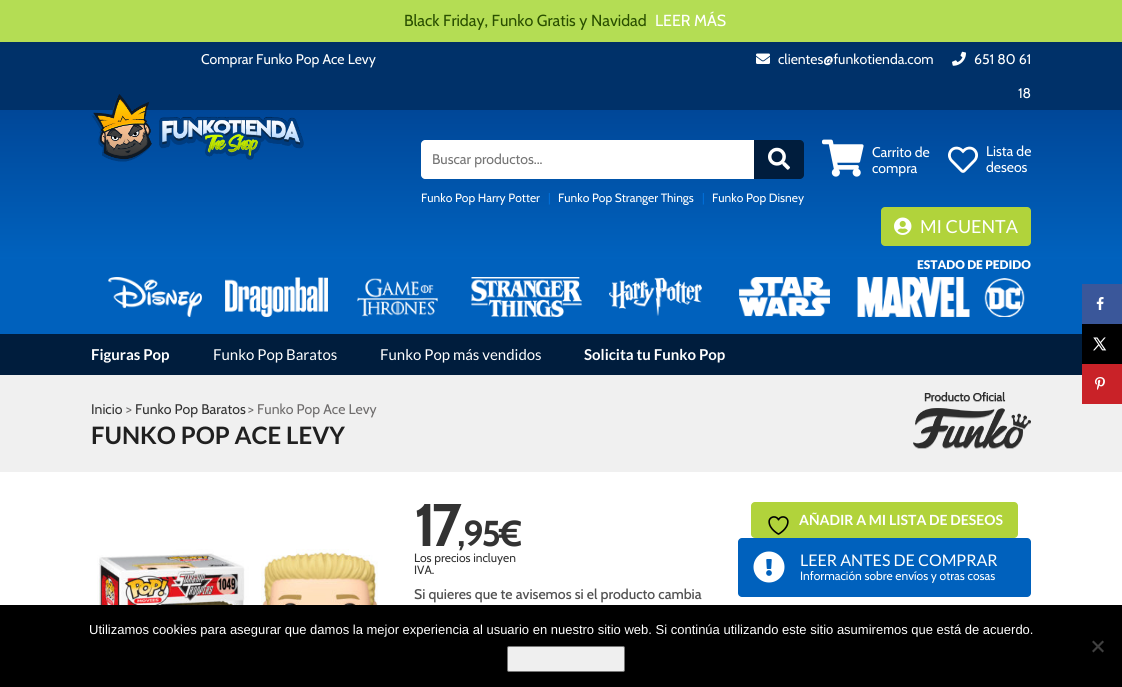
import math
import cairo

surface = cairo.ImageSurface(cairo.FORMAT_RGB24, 1122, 687)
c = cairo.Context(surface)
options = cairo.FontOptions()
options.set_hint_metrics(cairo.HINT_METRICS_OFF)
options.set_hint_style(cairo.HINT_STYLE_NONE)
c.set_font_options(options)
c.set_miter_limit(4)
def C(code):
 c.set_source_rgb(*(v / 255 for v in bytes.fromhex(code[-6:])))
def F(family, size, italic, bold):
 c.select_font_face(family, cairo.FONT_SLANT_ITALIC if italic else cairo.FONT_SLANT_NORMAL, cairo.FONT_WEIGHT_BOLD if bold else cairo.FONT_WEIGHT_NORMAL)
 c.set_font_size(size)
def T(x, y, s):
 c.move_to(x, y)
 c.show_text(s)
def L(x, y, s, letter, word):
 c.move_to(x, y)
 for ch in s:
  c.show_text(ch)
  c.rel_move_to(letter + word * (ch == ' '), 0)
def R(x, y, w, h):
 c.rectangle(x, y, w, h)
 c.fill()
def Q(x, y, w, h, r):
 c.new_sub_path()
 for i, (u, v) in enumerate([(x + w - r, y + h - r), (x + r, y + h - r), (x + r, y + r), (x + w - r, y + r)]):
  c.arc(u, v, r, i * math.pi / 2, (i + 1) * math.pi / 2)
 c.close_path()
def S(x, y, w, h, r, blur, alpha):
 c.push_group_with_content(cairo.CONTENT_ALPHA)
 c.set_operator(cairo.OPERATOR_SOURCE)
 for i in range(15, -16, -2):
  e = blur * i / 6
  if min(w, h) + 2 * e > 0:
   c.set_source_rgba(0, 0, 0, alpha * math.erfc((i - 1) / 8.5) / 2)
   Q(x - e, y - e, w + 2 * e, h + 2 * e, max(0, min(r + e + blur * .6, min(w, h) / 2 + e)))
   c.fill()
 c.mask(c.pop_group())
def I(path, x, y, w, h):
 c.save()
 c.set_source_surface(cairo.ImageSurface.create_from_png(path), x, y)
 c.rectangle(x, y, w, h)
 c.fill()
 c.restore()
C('ffffff')
c.paint()
C('003169')
R(0,42,1122,68)
I('2.png',952,51,14,15)
C('000000')
S(0,3,1122,42,0,2,.05)
C('b4dd54')
R(0,0,1122,42)
F('Cabin',16,0,0)
C('2a4f00')
T(404,26,'Black Friday, Funko Gratis y Navidad')
C('ffffff')
T(655,26,'LEER MÁS')
F('Cabin',14,0,0)
T(201,64,'Comprar Funko Pop Ace Levy')
I('1.png',756,53,14,11)
T(778,64,'clientes@funkotienda.com')
T(974,64,'651 80 61')
T(1018,98,'18')
gradient = cairo.LinearGradient(561,110,561,259)
gradient.add_color_stop_rgba(0,0,0.278,0.596,1)
gradient.add_color_stop_rgba(1,0,0.384,0.745,1)
c.set_source(gradient)
R(0,110,1122,149)
I('3.png',91,94,213,68)
C('ffffff')
c.new_path()
c.move_to(425,140)
c.line_to(754,140)
c.line_to(754,179)
c.line_to(425,179)
c.curve_to(423,179,421,177,421,175)
c.line_to(421,144)
c.curve_to(421,142,423,140,425,140)
c.close_path()
c.fill()
C('757575')
T(432,164,'Buscar productos...')
C('001d3d')
c.new_path()
c.move_to(754,140)
c.line_to(800,140)
c.curve_to(802,140,804,142,804,144)
c.line_to(804,175)
c.curve_to(804,177,802,179,800,179)
c.line_to(754,179)
c.close_path()
c.fill()
I('4.png',768,147,22,23)
F('Cabin',12,0,0)
C('ffffff')
T(421,202,'Funko Pop Harry Potter')
C('016fd8')
T(548,202,'|')
C('ffffff')
T(558,202,'Funko Pop Stranger Things')
C('016fd8')
T(702,202,'|')
C('ffffff')
T(712,202,'Funko Pop Disney')
I('5.png',822,139,42,38)
F('Cabin',14,0,0)
T(872,157,'Carrito de')
T(872,173,'compra')
I('6.png',948,146,30,27)
T(986,156,'Lista de')
T(986,172,'deseos')
C('b1d33b')
Q(881,207,150,39,4)
c.fill()
I('7.png',894,217,18,18)
F('Lato',18,0,0)
C('ffffff')
T(920,233,'MI CUENTA')
C('0061bd')
R(0,259,1122,75)
F('Lato Black',12,0,0)
C('ffffff')
T(917,269,'ESTADO DE PEDIDO')
I('8.png',108,277,94,40)
I('9.png',225,277,103,40)
I('10.png',357,278,81,39)
I('11.png',471,277,111,40)
I('12.png',609,277,93,39)
I('13.png',739,277,91,40)
I('14.png',857,277,113,40)
I('15.png',984,278,41,39)
C('001d3d')
R(0,334,1082,41)
F('Lato',15,0,1)
C('ffffff')
T(91,360,'Figuras Pop')
F('Lato',15,0,0)
T(213,360,'Funko Pop Baratos')
T(380,360,'Funko Pop más vendidos')
F('Lato',15,0,1)
T(584,360,'Solicita tu Funko Pop')
C('3a579a')
R(1082,284,40,40)
I('16.png',1096,297,8,13)
C('000000')
R(1082,324,40,40)
I('17.png',1093,337,14,14)
C('f0f0f0')
R(0,375,1122,97)
C('c92228')
R(1082,364,40,40)
I('18.png',1095,377,10,13)
F('Cabin',14,0,0)
C('333333')
T(91,414,'Inicio')
C('6e6c6c')
T(126,414,'>')
C('333333')
T(135,414,'Funko Pop Baratos')
C('6e6c6c')
T(248,414,'> Funko Pop Ace Levy')
F('Lato',24,0,1)
C('202020')
T(91,444,'FUNKO POP ACE LEVY')
I('19.png',913,392,118,57)
I('20.png',97,549,281,56)
F('Cabin',60,0,1)
C('333333')
L(414,546,'17',-5,0)
F('Cabin',36,0,1)
L(457,546,',95€',-2,0)
F('Cabin',12,0,0)
T(414,562,'Los precios incluyen')
T(414,574,'IVA.')
F('Cabin Medium',14,0,0)
C('525252')
T(414,599,'Si quieres que te avisemos si el producto cambia')
C('b1d33b')
Q(751,502,267,36,4)
c.fill()
I('21.png',768,516,21,19)
F('Lato',14,0,1)
C('ffffff')
T(799,525,'AÑADIR A MI LISTA DE DESEOS')
C('0061bd')
Q(738,538,293,59,4)
c.fill()
I('22.png',753,551,32,32)
F('Lato',16,0,0)
C('ffffff')
T(800,566,'LEER ANTES DE COMPRAR')
F('Cabin',12,0,0)
T(800,580,'Información sobre envíos y otras cosas')
C('000000')
R(0,605,1122,82)
F('Liberation Sans',13,0,0)
C('ffffff')
T(89,634,'Utilizamos cookies para asegurar que damos la mejor experiencia al usuario en nuestro sitio web. Si continúa utilizando este sitio asumiremos que está de acuerdo.')
C('efefef')
Q(507.5,646.5,117,25,1.5)
c.fill_preserve()
C('767676')
c.set_line_width(1)
c.stroke()
C('404040')
c.new_path()
c.move_to(1102.5,640.5)
c.line_to(1104,642)
c.line_to(1093.5,652.5)
c.line_to(1092,651)
c.close_path()
c.fill()
c.new_path()
c.move_to(1092,642)
c.line_to(1093.5,640.5)
c.line_to(1104,651)
c.line_to(1102.5,652.5)
c.close_path()
c.fill()
surface.write_to_png('o.png')
